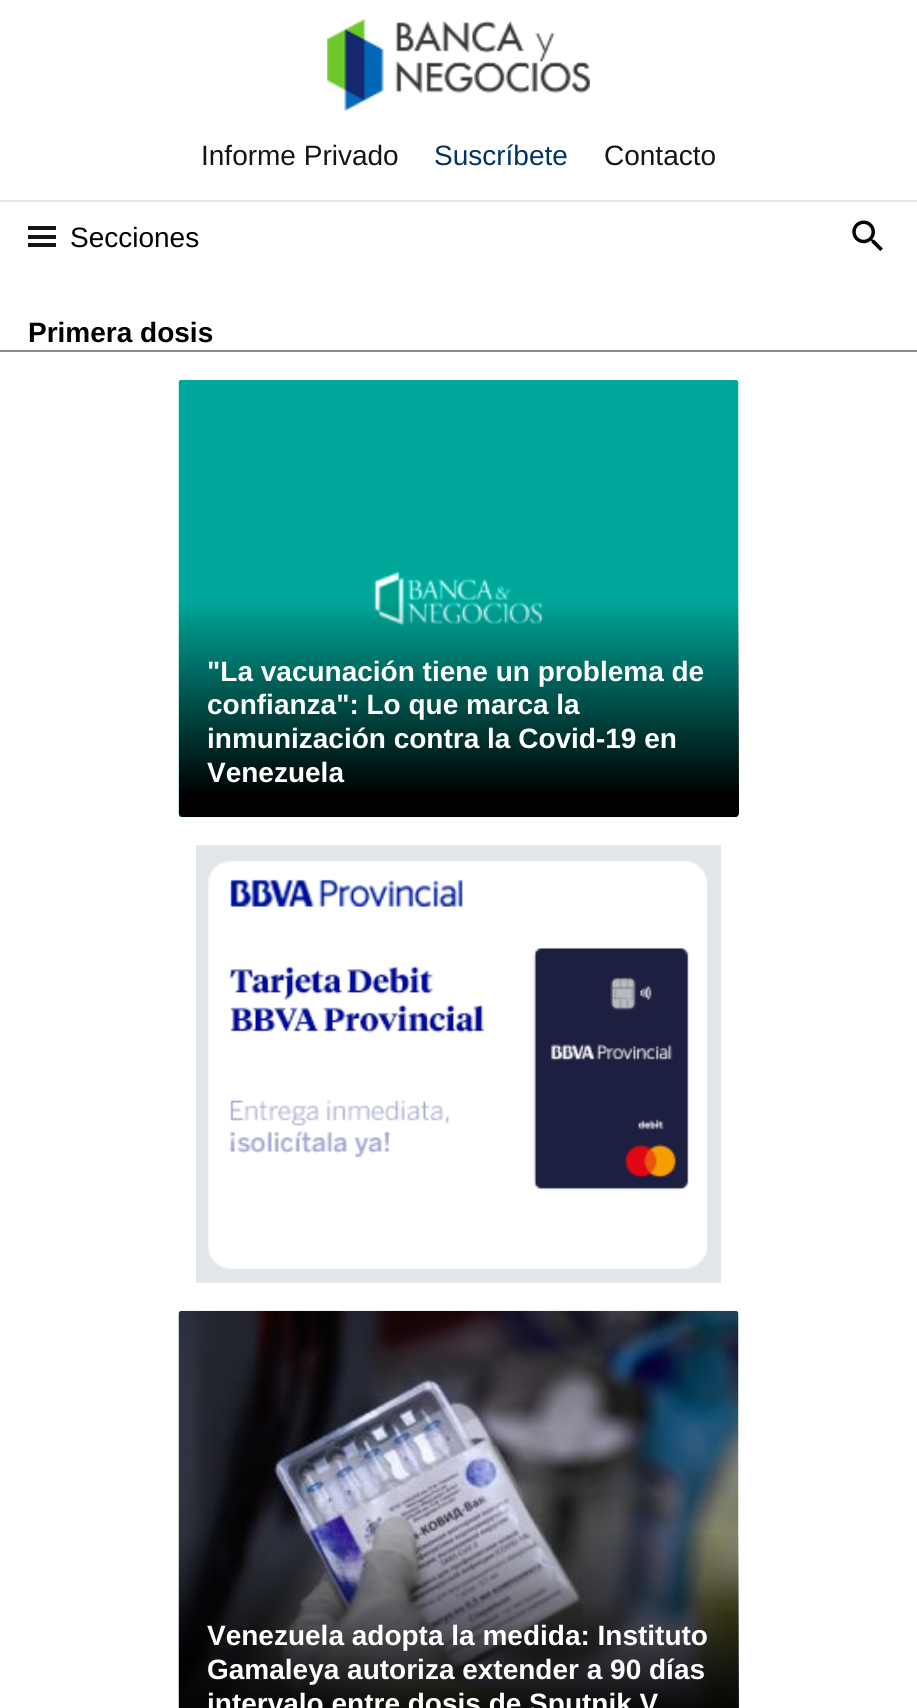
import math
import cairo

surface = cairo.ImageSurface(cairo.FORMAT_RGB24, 917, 1708)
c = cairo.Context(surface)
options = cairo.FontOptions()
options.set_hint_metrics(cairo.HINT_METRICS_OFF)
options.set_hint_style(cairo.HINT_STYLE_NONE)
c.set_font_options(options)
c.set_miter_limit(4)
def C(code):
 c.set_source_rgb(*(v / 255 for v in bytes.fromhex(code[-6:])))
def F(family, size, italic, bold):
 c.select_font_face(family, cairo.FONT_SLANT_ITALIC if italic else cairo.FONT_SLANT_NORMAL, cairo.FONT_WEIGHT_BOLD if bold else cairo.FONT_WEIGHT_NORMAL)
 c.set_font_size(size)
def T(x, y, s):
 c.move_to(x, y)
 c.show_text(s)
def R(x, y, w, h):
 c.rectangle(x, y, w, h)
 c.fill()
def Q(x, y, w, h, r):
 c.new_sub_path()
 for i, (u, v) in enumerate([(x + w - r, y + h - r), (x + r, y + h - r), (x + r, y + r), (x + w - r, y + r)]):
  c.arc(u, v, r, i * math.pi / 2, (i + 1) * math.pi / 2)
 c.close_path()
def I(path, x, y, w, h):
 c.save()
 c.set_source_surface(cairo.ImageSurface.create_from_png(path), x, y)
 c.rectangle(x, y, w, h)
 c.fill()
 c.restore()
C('ffffff')
c.paint()
I('1.png',327,19,263,92)
F('Liberation Sans',28,0,0)
C('151515')
T(201,165,'Informe Privado')
C('003366')
T(434,165,'Suscríbete')
C('151515')
T(604,165,'Contacto')
C('e6e6e6')
R(0,200,917,2)
C('151515')
R(28,235,28,4)
R(28,226,28,4)
R(28,243,28,4)
C('000000')
T(70,247,'Secciones')
I('2.png',852,220,31,31)
C('8a8a8a')
R(0,350,917,2)
F('Liberation Sans',28,0,1)
C('000000')
T(28,342,'Primera dosis')
I('3.png',178,379,561,439)
gradient = cairo.LinearGradient(459,817,459,380)
gradient.add_color_stop_rgba(0,0,0,0,1)
gradient.add_color_stop_rgba(.05,0,0,0,1)
gradient.add_color_stop_rgba(.5,0,0,0,0)
gradient.add_color_stop_rgba(1,1,1,1,0)
c.set_source(gradient)
Q(179,380,560,437,4)
c.fill()
C('ffffff')
T(207,681,'"La vacunación tiene un problema de')
T(207,714,'confianza": Lo que marca la')
T(207,748,'inmunización contra la Covid-19 en')
T(207,782,'Venezuela')
I('4.png',196,845,525,438)
I('5.png',178,1310,561,398)
gradient = cairo.LinearGradient(459,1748,459,1311)
gradient.add_color_stop_rgba(0,0,0,0,1)
gradient.add_color_stop_rgba(.05,0,0,0,1)
gradient.add_color_stop_rgba(.5,0,0,0,0)
gradient.add_color_stop_rgba(1,1,1,1,0)
c.set_source(gradient)
R(179,1534,560,174)
C('ffffff')
T(207,1645,'Venezuela adopta la medida: Instituto')
T(207,1679,'Gamaleya autoriza extender a 90 días')
T(207,1713,'intervalo entre dosis de Sputnik V')
surface.write_to_png('o.png')
